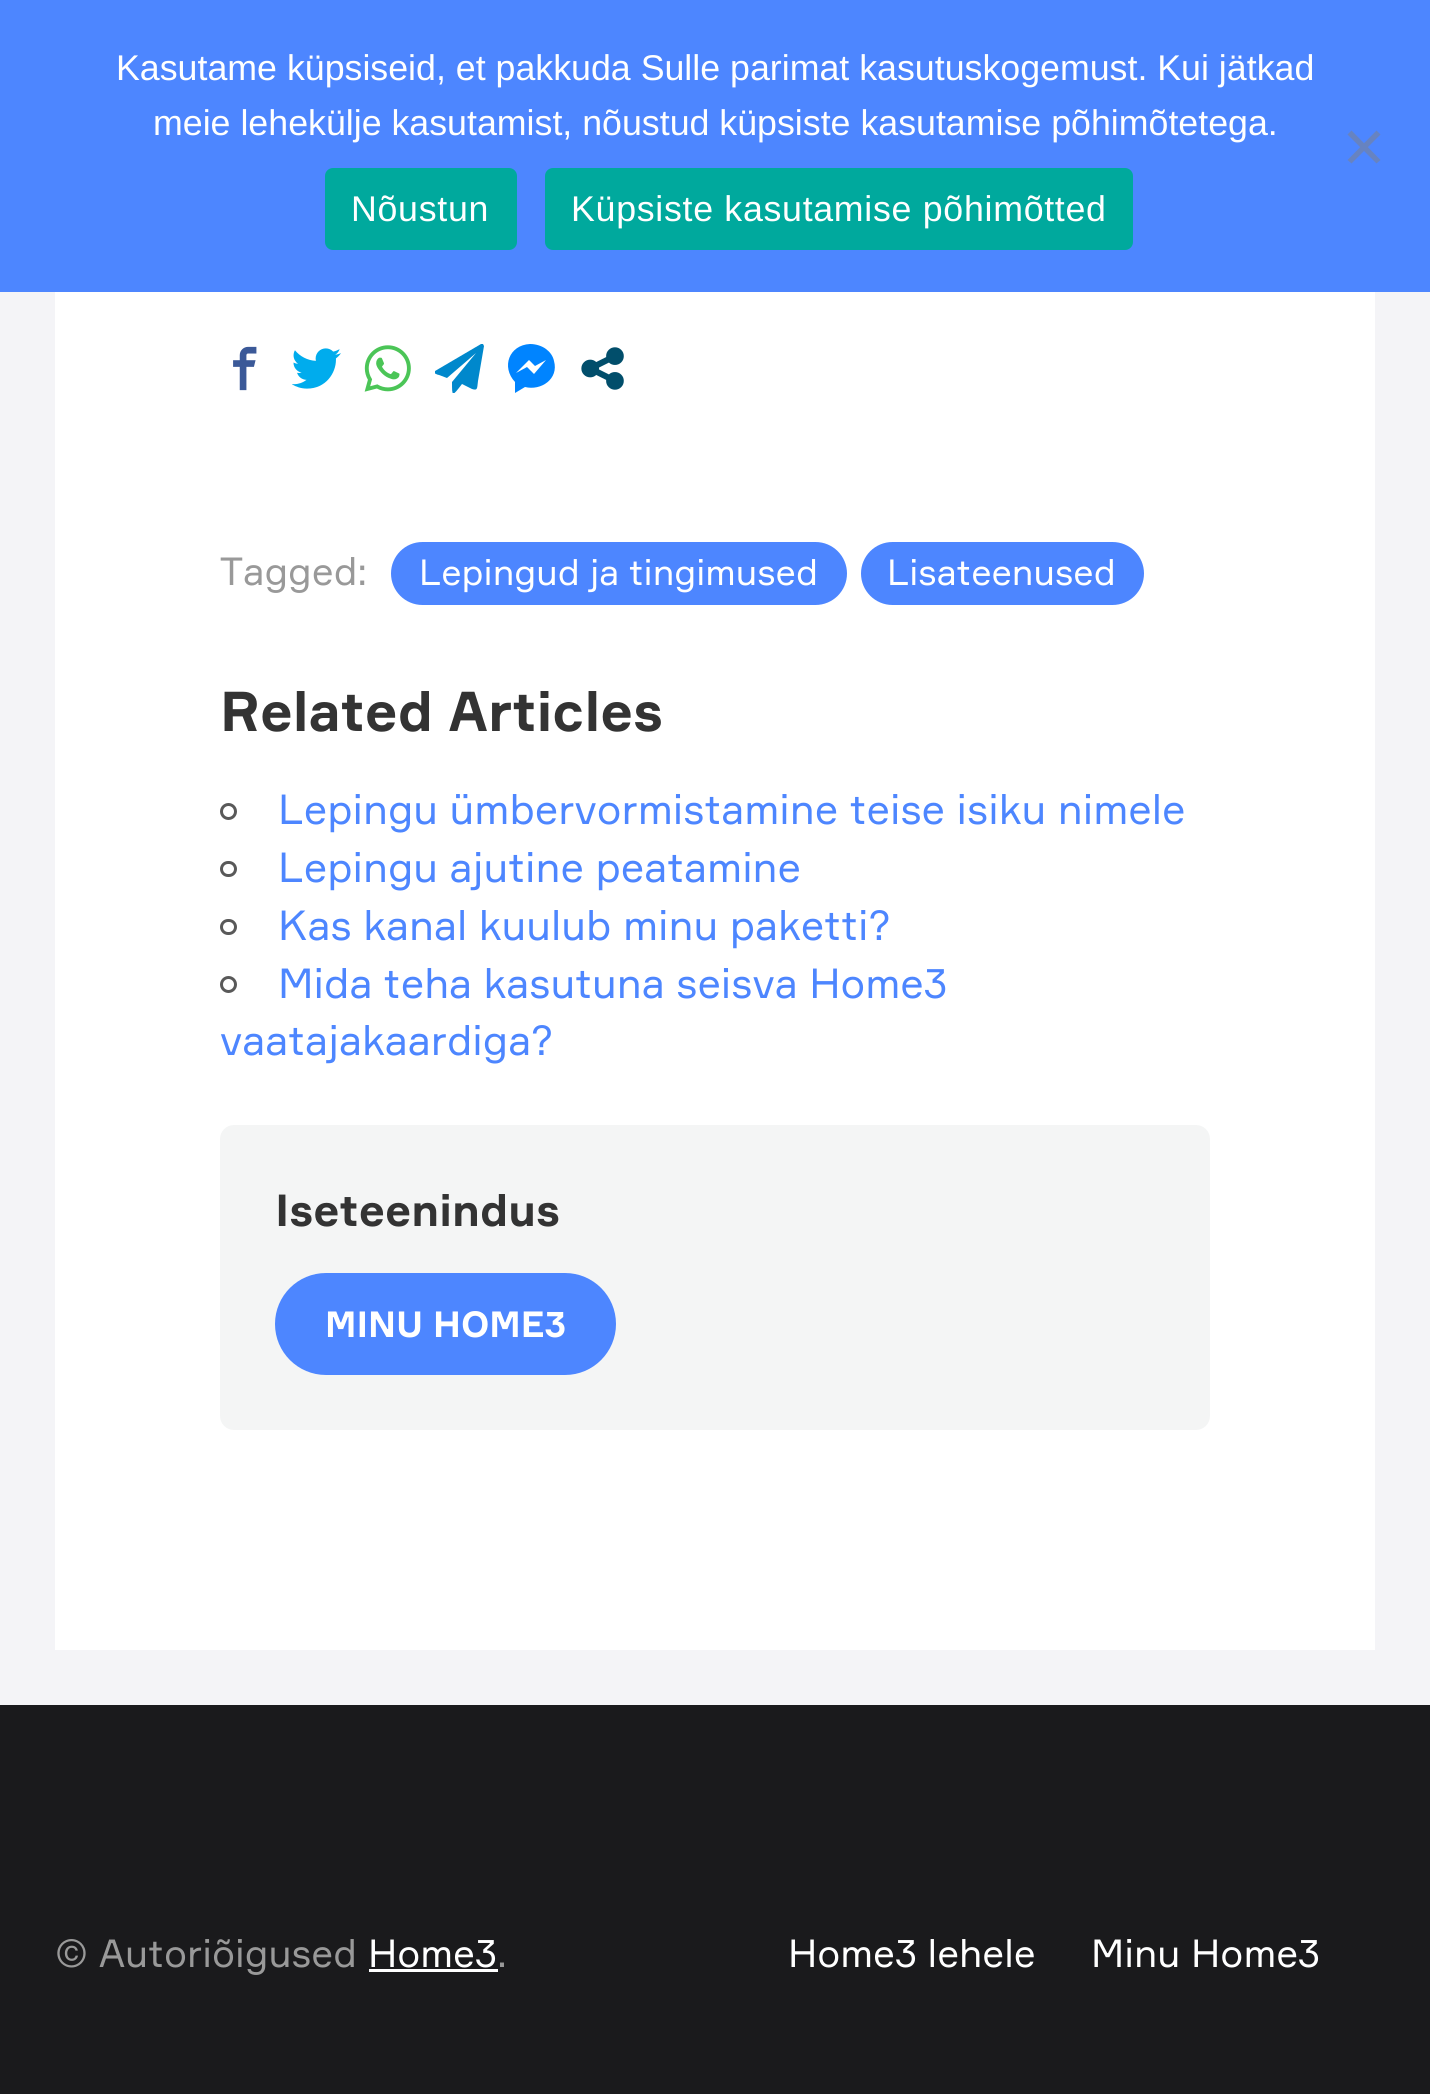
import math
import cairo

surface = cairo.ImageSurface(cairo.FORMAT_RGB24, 1430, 2094)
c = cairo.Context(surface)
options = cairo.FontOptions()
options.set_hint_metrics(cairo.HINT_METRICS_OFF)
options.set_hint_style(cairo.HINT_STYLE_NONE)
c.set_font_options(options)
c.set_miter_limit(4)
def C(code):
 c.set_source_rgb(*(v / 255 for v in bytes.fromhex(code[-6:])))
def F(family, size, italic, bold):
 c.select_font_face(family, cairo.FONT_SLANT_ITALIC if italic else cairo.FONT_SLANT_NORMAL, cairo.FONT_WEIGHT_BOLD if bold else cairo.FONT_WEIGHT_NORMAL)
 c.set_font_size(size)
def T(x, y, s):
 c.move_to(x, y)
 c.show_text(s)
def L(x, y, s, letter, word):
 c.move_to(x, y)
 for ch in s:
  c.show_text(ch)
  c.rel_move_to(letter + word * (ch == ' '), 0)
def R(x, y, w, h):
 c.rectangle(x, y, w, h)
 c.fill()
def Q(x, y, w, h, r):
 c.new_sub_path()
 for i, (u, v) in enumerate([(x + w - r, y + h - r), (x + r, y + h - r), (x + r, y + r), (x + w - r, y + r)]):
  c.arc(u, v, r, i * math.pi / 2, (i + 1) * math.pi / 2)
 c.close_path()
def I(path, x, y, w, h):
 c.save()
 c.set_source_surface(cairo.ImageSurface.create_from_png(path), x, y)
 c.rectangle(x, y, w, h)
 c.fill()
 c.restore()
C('f4f4f7')
c.paint()
C('4d86ff')
R(0,0,1430,292)
F('Liberation Sans',35.75,0,0)
C('ffffff')
T(116,80,'Kasutame küpsiseid, et pakkuda Sulle parimat kasutuskogemust. Kui jätkad')
T(153,135,'meie lehekülje kasutamist, nõustud küpsiste kasutamise põhimõtetega.')
C('6783c0')
c.new_path()
c.move_to(1376.5,130.5)
c.line_to(1380.5,134.5)
c.line_to(1351.5,163.5)
c.line_to(1347.5,160)
c.close_path()
c.fill()
c.new_path()
c.move_to(1347.5,134.5)
c.line_to(1351.5,130.5)
c.line_to(1380.5,160)
c.line_to(1376.5,163.5)
c.close_path()
c.fill()
C('00a99d')
Q(325,168,192,82,8)
c.fill()
C('ffffff')
L(351,221,'Nõustun',.7,0)
C('00a99d')
Q(545,168,588,82,8)
c.fill()
C('ffffff')
L(571,221,'Küpsiste kasutamise põhimõtted',.7,0)
R(55,292,1320,1358)
I('1.png',233,346,24,45)
I('2.png',292,348,49,41)
I('3.png',364,345,47,47)
c.save()
c.rectangle(435,344,49,49)
c.clip()
C('0088cc')
c.new_path()
c.move_to(483,344)
c.line_to(484,346)
c.line_to(478,381)
c.curve_to(477,388,478,391,472,389)
c.line_to(462,384)
c.curve_to(452,397,452,397,452,382)
c.line_to(476,353)
c.line_to(447,378)
c.line_to(439,375)
c.curve_to(438,375,432,373,435,371)
c.line_to(481,344)
c.close_path()
c.fill()
c.restore()
C('0084ff')
c.new_path()
c.move_to(530,344)
c.curve_to(509,345,501,367,515,382)
c.line_to(515,393)
c.line_to(525,387)
c.curve_to(541,391,559,379,554,361)
c.curve_to(553,356,550,352,546,349)
c.curve_to(542,346,536,344,530,344)
c.close_path()
c.move_to(535,366)
c.line_to(546,360)
c.line_to(534,374)
c.line_to(527,367)
c.line_to(516,373)
c.line_to(529,360)
c.close_path()
c.fill()
I('4.png',581,347,43,43)
F('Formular',38.5,0,0)
C('999999')
T(220,585,'Tagged:')
C('4d86ff')
Q(391,542,456,63,31.5)
c.fill()
F('Formular',35.75,0,0)
C('ffffff')
T(419,585,'Lepingud ja tingimused')
C('4d86ff')
Q(861,542,283,63,31.5)
c.fill()
C('ffffff')
T(887,585,'Lisateenused')
F('Formular',55,0,1)
C('333333')
T(220,731,'Related Articles')
c.new_path()
c.arc(228.5,811.5,7,0,2 * math.pi)
C('595959')
c.set_line_width(3)
c.stroke()
F('Formular',41.25,0,0)
C('4d86ff')
T(278,824,'Lepingu ümbervormistamine teise isiku nimele')
Q(221.5,862.5,14,13,6.5)
C('595959')
c.stroke()
C('4d86ff')
T(278,882,'Lepingu ajutine peatamine')
Q(221.5,920.5,14,13,6.5)
C('595959')
c.stroke()
C('4d86ff')
T(278,940,'Kas kanal kuulub minu paketti?')
c.new_path()
c.arc(228.5,984.5,7,0,2 * math.pi)
C('595959')
c.stroke()
C('4d86ff')
T(278,998,'Mida teha kasutuna seisva Home3')
T(220,1055,'vaatajakaardiga?')
C('f4f5f5')
Q(220,1125,990,305,14)
c.fill()
F('Formular',44,0,1)
C('333333')
T(275,1226,'Iseteenindus')
C('4d86ff')
Q(275,1273,341,102,51)
c.fill()
F('Formular',35.75,0,1)
C('ffffff')
T(325,1337,'MINU HOME3')
C('1a1a1c')
R(0,1705,1430,389)
F('Formular',38.5,0,0)
C('999999')
T(55,1967,'© Autoriõigused')
C('ffffff')
T(368,1967,'Home3')
R(369,1969,129,3)
C('999999')
T(497,1967,'.')
C('ffffff')
T(788,1967,'Home3 lehele')
T(1091,1967,'Minu Home3')
surface.write_to_png('o.png')
